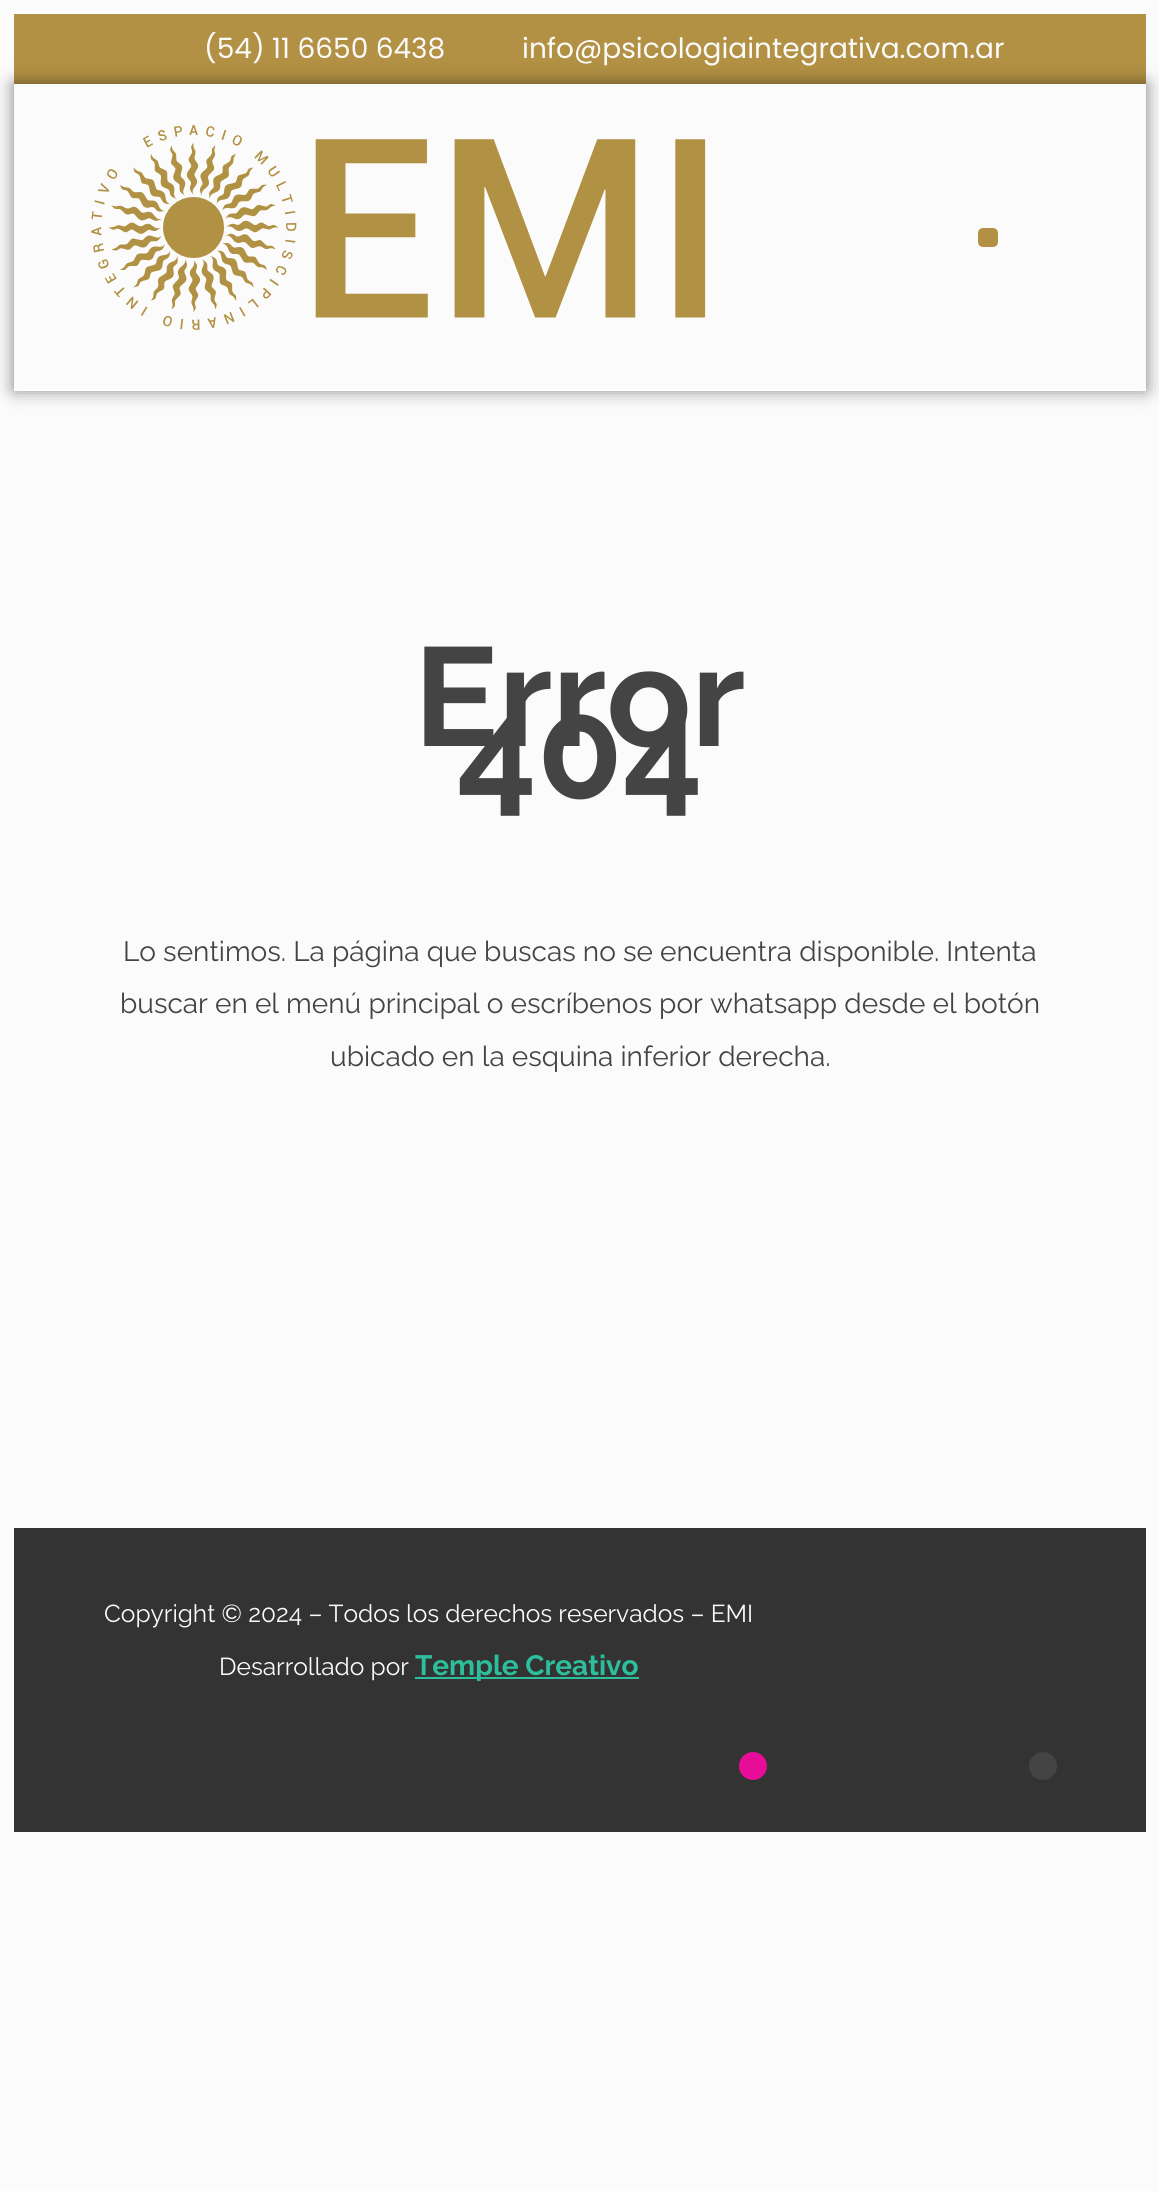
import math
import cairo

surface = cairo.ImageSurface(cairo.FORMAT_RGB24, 1159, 2191)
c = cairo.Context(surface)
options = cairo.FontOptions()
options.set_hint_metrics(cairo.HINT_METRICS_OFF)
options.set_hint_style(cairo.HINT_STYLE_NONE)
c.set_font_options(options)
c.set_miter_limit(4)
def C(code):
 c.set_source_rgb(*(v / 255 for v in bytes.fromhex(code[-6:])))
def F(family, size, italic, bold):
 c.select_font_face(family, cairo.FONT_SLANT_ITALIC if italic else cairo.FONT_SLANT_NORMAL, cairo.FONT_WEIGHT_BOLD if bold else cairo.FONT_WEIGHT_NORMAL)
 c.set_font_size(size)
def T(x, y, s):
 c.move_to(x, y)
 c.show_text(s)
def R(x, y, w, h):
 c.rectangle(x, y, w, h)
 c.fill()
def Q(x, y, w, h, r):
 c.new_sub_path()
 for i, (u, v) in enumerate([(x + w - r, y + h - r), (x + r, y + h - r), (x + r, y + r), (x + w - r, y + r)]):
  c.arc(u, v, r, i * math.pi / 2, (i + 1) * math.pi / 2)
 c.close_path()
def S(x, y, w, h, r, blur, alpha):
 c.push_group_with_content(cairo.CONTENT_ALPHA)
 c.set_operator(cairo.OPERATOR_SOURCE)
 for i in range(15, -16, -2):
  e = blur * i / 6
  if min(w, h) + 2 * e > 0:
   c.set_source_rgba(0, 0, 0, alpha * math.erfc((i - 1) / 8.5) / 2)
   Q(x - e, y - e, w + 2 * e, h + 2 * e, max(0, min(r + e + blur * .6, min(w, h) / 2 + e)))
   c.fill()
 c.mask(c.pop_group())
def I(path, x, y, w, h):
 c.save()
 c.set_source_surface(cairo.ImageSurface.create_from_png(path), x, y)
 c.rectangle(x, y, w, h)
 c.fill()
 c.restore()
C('fbfbfb')
c.paint()
C('b29144')
R(14,14,1132,70)
c.save()
c.rectangle(156,32,849,35)
c.clip()
F('Poppins',28,0,0)
C('fbfbfb')
T(204,58,'(54) 11 6650 6438')
c.restore()
F('Poppins',28,0,0)
C('fbfbfb')
T(522,58,'info@psicologiaintegrativa.com.ar')
c.save()
c.set_fill_rule(cairo.FILL_RULE_EVEN_ODD)
c.new_path()
c.move_to(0,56)
c.line_to(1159,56)
c.line_to(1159,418)
c.line_to(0,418)
c.close_path()
c.move_to(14,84)
c.line_to(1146,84)
c.line_to(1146,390)
c.line_to(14,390)
c.close_path()
c.clip()
C('000000')
S(14,84,1132,306,0,9,.5)
c.restore()
C('ffffff')
R(14,389,1132,2)
I('1.png',91,125,615,205)
C('b29144')
Q(978,228,20,19,5)
c.fill()
F('Raleway',140,0,1)
C('444444')
T(414,746,'Error')
T(457,798,'404')
F('Raleway',28,0,0)
T(123,961,'Lo sentimos. La página que buscas no se encuentra disponible. Intenta')
T(120,1013,'buscar en el menú principal o escríbenos por whatsapp desde el botón')
T(330,1066,'ubicado en la esquina inferior derecha.')
C('333333')
R(14,1528,1132,304)
F('Raleway',24.5,0,0)
C('fbfbfb')
T(104,1622,'Copyright © 2024 – Todos los derechos reservados – EMI')
T(219,1675,'Desarrollado por')
C('2cbf9d')
R(415,1677,224,2)
F('Raleway',28,0,1)
T(415,1675,'Temple Creativo')
C('e70d98')
c.new_path()
c.arc(753,1766,14,0,2 * math.pi)
c.fill()
C('444444')
c.arc(1043,1766,14,0,2 * math.pi)
c.fill()
surface.write_to_png('o.png')
